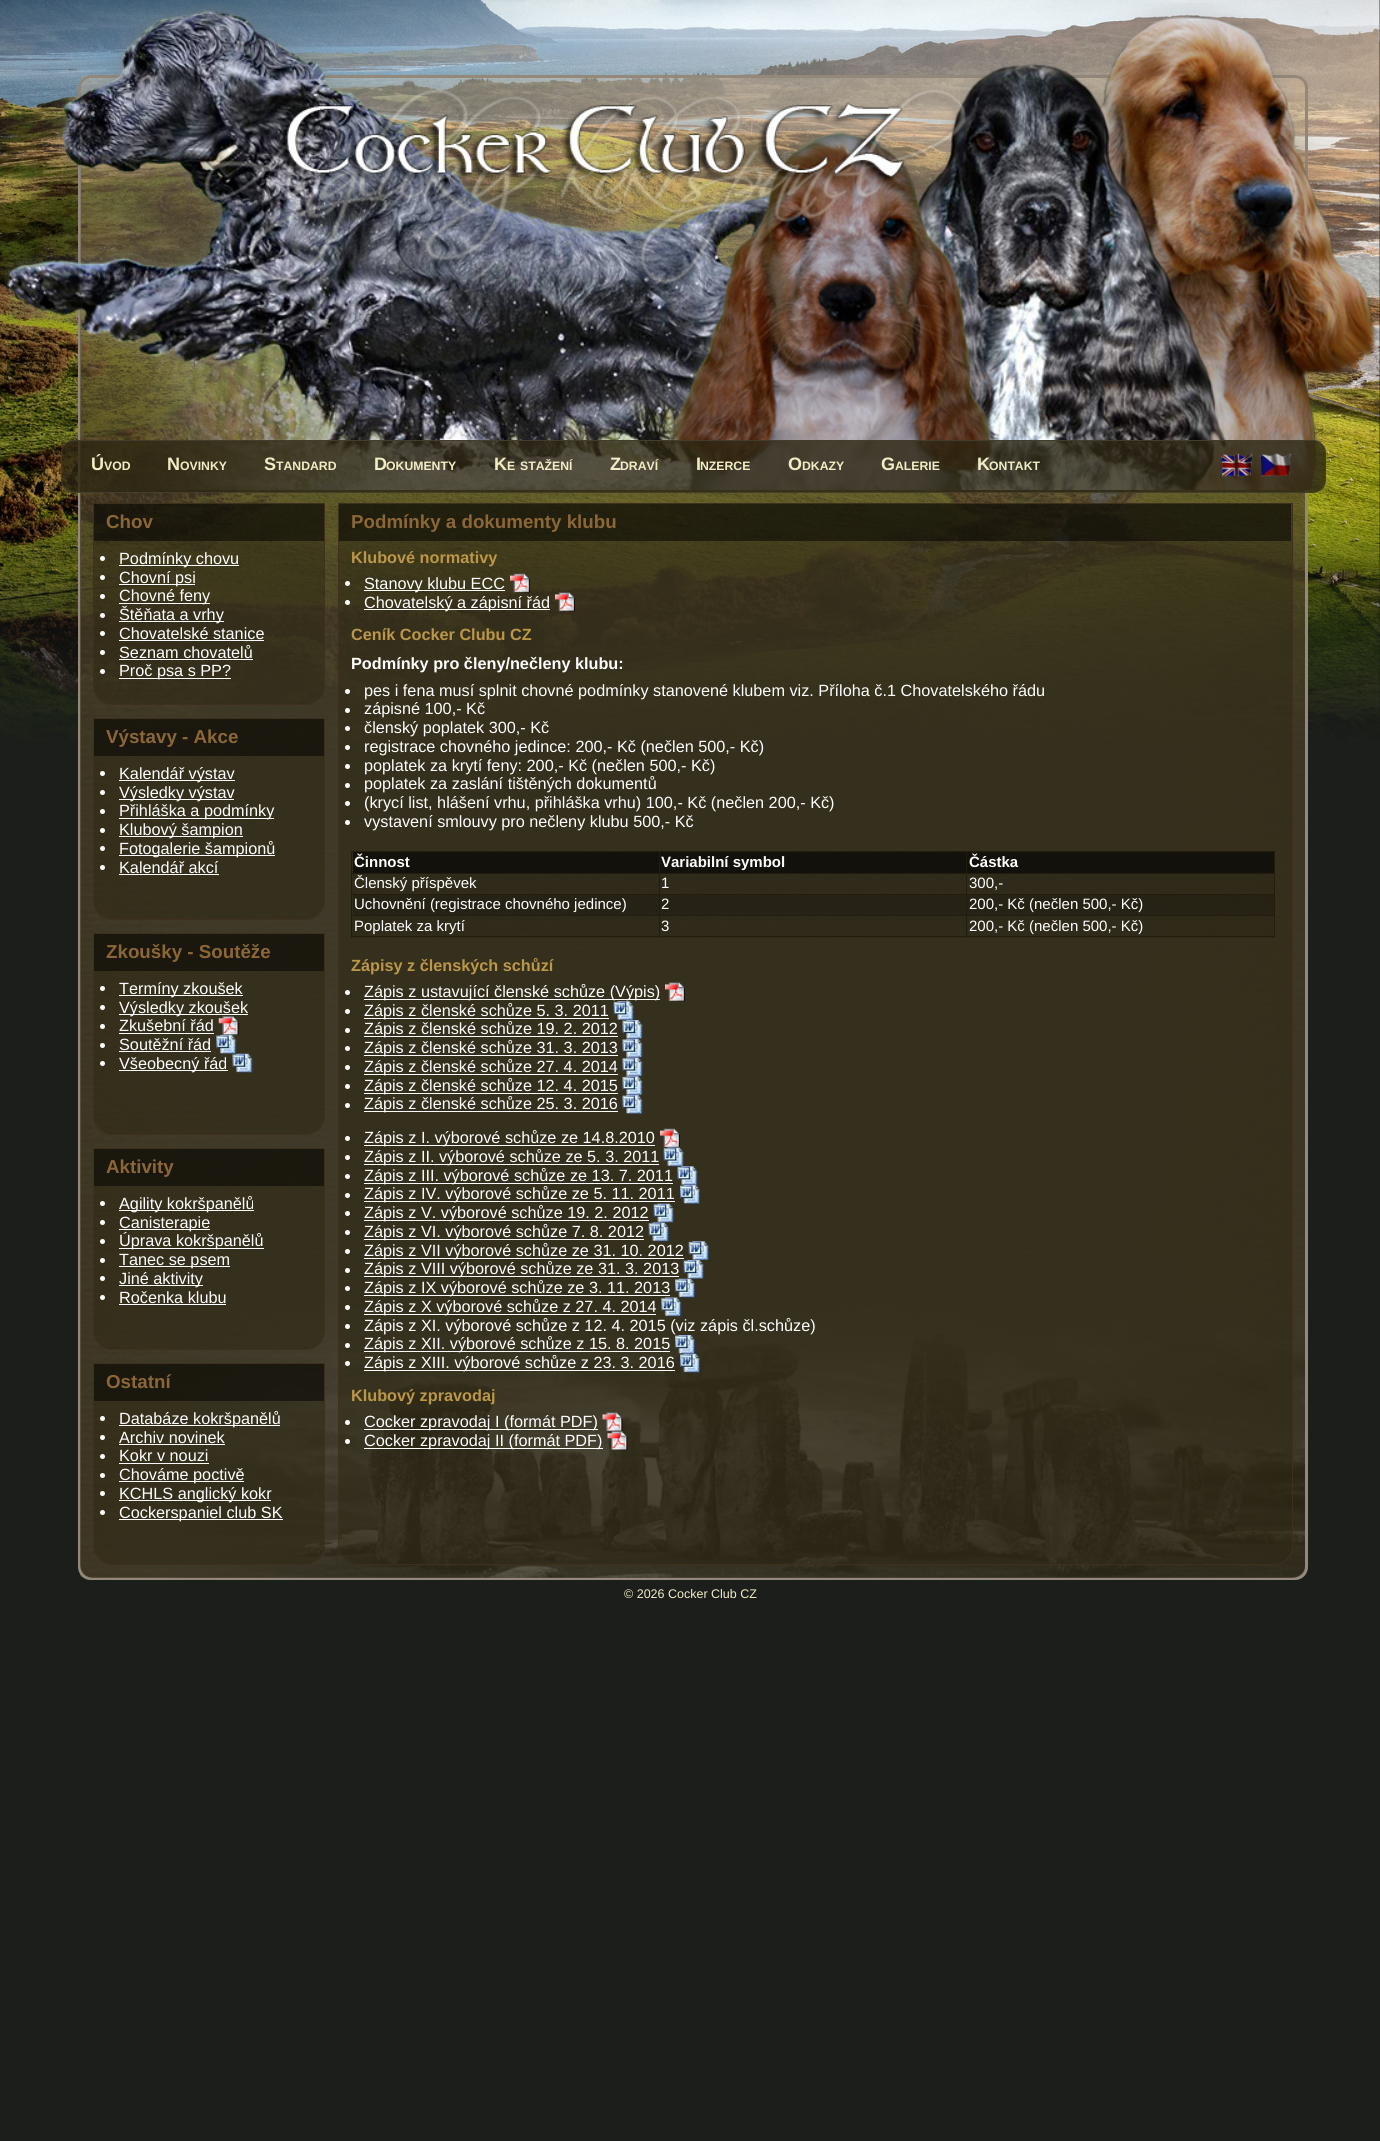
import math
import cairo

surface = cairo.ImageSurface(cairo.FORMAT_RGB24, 1380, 2141)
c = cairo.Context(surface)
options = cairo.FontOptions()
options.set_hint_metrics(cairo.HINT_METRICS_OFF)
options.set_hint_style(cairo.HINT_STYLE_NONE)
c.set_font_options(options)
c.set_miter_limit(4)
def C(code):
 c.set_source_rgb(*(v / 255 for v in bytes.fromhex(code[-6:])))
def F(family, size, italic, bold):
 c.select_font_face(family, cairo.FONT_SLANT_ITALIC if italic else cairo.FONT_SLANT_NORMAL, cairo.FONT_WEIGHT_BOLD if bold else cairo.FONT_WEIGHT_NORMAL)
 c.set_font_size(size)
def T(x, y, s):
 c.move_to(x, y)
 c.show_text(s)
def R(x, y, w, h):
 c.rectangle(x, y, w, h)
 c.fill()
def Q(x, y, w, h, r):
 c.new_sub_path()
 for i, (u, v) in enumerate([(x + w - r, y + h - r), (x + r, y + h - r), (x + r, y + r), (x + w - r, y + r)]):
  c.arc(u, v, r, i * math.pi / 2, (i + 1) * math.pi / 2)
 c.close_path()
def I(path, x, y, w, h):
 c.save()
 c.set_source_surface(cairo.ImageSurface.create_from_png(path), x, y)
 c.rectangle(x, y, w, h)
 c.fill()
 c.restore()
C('1b1e1b')
c.paint()
I('1.png',0,0,1380,741)
I('2.png',80,75,1225,1505)
Q(79.5,76.5,1227,1502,11.5)
C('93887a')
c.set_line_width(3)
c.stroke()
I('3.png',5,3,1375,487)
I('32.png',169,1306,1136,272)
c.set_source_rgba(0.173,0.149,0.071,0.6)
c.new_path()
c.move_to(80,490)
c.line_to(1305,490)
c.line_to(1305,1565)
c.curve_to(1305,1572,1299,1578,1292,1578)
c.line_to(93,1578)
c.curve_to(86,1578,80,1572,80,1565)
c.close_path()
c.fill()
c.set_source_rgba(0.173,0.149,0.071,0.8)
Q(61.5,440.5,1264,52,12.5)
c.fill_preserve()
C('423d2d')
c.set_line_width(1)
c.stroke()
F('Liberation Sans',18,0,1)
C('f3edc6')
T(91,470,'Ú')
F('Liberation Sans',12.25,0,1)
T(104,470,'VOD')
F('Liberation Sans',18,0,1)
T(167,470,'N')
F('Liberation Sans',12.25,0,1)
T(180,470,'OVINKY')
F('Liberation Sans',18,0,1)
T(264,470,'S')
F('Liberation Sans',12.25,0,1)
T(276,470,'TANDARD')
F('Liberation Sans',18,0,1)
T(374,470,'D')
F('Liberation Sans',12.25,0,1)
T(386,470,'OKUMENTY')
F('Liberation Sans',18,0,1)
T(494,470,'K')
F('Liberation Sans',12.25,0,1)
T(507,470,'E')
T(520,470,'STAŽENÍ')
F('Liberation Sans',18,0,1)
T(610,470,'Z')
F('Liberation Sans',12.25,0,1)
T(620,470,'DRAVÍ')
F('Liberation Sans',18,0,1)
T(696,470,'I')
F('Liberation Sans',12.25,0,1)
T(700,470,'NZERCE')
F('Liberation Sans',18,0,1)
T(788,470,'O')
F('Liberation Sans',12.25,0,1)
T(802,470,'DKAZY')
F('Liberation Sans',18,0,1)
T(881,470,'G')
F('Liberation Sans',12.25,0,1)
T(895,470,'ALERIE')
F('Liberation Sans',18,0,1)
T(977,470,'K')
F('Liberation Sans',12.25,0,1)
T(989,470,'ONTAKT')
I('4.png',1221,453,32,24)
I('5.png',1260,453,32,24)
c.set_source_rgba(0.173,0.149,0.071,0.5)
c.new_path()
c.move_to(93.5,503.5)
c.line_to(324.5,503.5)
c.line_to(324.5,686)
c.curve_to(324.5,696,316,704.5,306,704.5)
c.line_to(112,704.5)
c.curve_to(102,704.5,93.5,696,93.5,686)
c.close_path()
c.fill_preserve()
C('3f301e')
c.stroke()
c.set_source_rgba(0,0,0,0.5)
R(94,504,230,37)
F('Liberation Sans',18.75,0,1)
C('8c6735')
T(106,528,'Chov')
C('ffffff')
c.new_path()
c.arc(102.5,558.5,2.5,0,2 * math.pi)
c.fill()
R(119,565,120,1)
F('Liberation Sans',16.25,0,0)
T(119,564,'Podmínky chovu')
c.new_path()
c.arc(102.5,577.5,2.5,0,2 * math.pi)
c.fill()
R(119,584,76,1)
T(119,583,'Chovní psi')
c.new_path()
c.arc(102.5,596.5,2.5,0,2 * math.pi)
c.fill()
R(119,603,91,1)
T(119,601,'Chovné feny')
c.new_path()
c.arc(102.5,615.5,2.5,0,2 * math.pi)
c.fill()
R(119,621,105,1)
T(119,620,'Štěňata a vrhy')
c.new_path()
c.arc(102.5,633.5,2.5,0,2 * math.pi)
c.fill()
T(119,639,'Chovatelské stanice')
R(119,640,145,1)
c.new_path()
c.arc(102.5,652.5,2.5,0,2 * math.pi)
c.fill()
T(119,658,'Seznam chovatelů')
R(119,659,134,1)
c.new_path()
c.arc(102.5,671.5,2.5,0,2 * math.pi)
c.fill()
R(119,678,112,1)
T(119,676,'Proč psa s PP?')
c.set_source_rgba(0.173,0.149,0.071,0.5)
c.new_path()
c.move_to(93.5,718.5)
c.line_to(324.5,718.5)
c.line_to(324.5,901)
c.curve_to(324.5,911,316,919.5,306,919.5)
c.line_to(112,919.5)
c.curve_to(102,919.5,93.5,911,93.5,901)
c.close_path()
c.fill_preserve()
C('3f301e')
c.stroke()
c.set_source_rgba(0,0,0,0.5)
R(94,719,230,37)
F('Liberation Sans',18.75,0,1)
C('8c6735')
T(106,743,'Výstavy - Akce')
C('ffffff')
c.new_path()
c.arc(102.5,773.5,2.5,0,2 * math.pi)
c.fill()
R(119,780,116,1)
F('Liberation Sans',16.25,0,0)
T(119,779,'Kalendář výstav')
c.new_path()
c.arc(102.5,792.5,2.5,0,2 * math.pi)
c.fill()
R(119,799,115,1)
T(119,798,'Výsledky výstav')
c.new_path()
c.arc(102.5,811.5,2.5,0,2 * math.pi)
c.fill()
R(119,818,155,1)
T(119,816,'Přihláška a podmínky')
c.new_path()
c.arc(102.5,830.5,2.5,0,2 * math.pi)
c.fill()
R(119,836,124,1)
T(119,835,'Klubový šampion')
c.new_path()
c.arc(102.5,848.5,2.5,0,2 * math.pi)
c.fill()
R(119,855,156,1)
T(119,854,'Fotogalerie šampionů')
c.new_path()
c.arc(102.5,867.5,2.5,0,2 * math.pi)
c.fill()
T(119,873,'Kalendář akcí')
R(119,874,100,1)
c.set_source_rgba(0.173,0.149,0.071,0.5)
c.new_path()
c.move_to(93.5,933.5)
c.line_to(324.5,933.5)
c.line_to(324.5,1116)
c.curve_to(324.5,1126,316,1134.5,306,1134.5)
c.line_to(112,1134.5)
c.curve_to(102,1134.5,93.5,1126,93.5,1116)
c.close_path()
c.fill_preserve()
C('3f301e')
c.stroke()
c.set_source_rgba(0,0,0,0.5)
R(94,934,230,37)
F('Liberation Sans',18.75,0,1)
C('8c6735')
T(106,958,'Zkoušky - Soutěže')
C('ffffff')
c.new_path()
c.arc(102.5,988.5,2.5,0,2 * math.pi)
c.fill()
R(119,995,124,1)
F('Liberation Sans',16.25,0,0)
T(119,994,'Termíny zkoušek')
c.new_path()
c.arc(102.5,1007.5,2.5,0,2 * math.pi)
c.fill()
R(119,1014,129,1)
T(119,1013,'Výsledky zkoušek')
c.new_path()
c.arc(102.5,1026.5,2.5,0,2 * math.pi)
c.fill()
T(119,1031,'Zkušební řád')
R(119,1033,95,1)
I('6.png',218,1016,21,19)
c.arc(102.5,1045.5,2.5,0,2 * math.pi)
c.fill()
T(119,1050,'Soutěžní řád')
R(119,1051,92,1)
I('7.png',216,1035,21,19)
c.arc(102.5,1063.5,2.5,0,2 * math.pi)
c.fill()
R(119,1070,109,1)
T(119,1069,'Všeobecný řád')
I('8.png',232,1053,21,20)
c.set_source_rgba(0.173,0.149,0.071,0.5)
c.new_path()
c.move_to(93.5,1148.5)
c.line_to(324.5,1148.5)
c.line_to(324.5,1331)
c.curve_to(324.5,1341,316,1349.5,306,1349.5)
c.line_to(112,1349.5)
c.curve_to(102,1349.5,93.5,1341,93.5,1331)
c.close_path()
c.fill_preserve()
C('3f301e')
c.stroke()
c.set_source_rgba(0,0,0,0.5)
R(94,1149,230,37)
F('Liberation Sans',18.75,0,1)
C('8c6735')
T(106,1173,'Aktivity')
C('ffffff')
c.new_path()
c.arc(102.5,1203.5,2.5,0,2 * math.pi)
c.fill()
R(119,1210,135,1)
F('Liberation Sans',16.25,0,0)
T(119,1209,'Agility kokršpanělů')
c.new_path()
c.arc(102.5,1222.5,2.5,0,2 * math.pi)
c.fill()
R(119,1229,91,1)
T(119,1228,'Canisterapie')
c.new_path()
c.arc(102.5,1241.5,2.5,0,2 * math.pi)
c.fill()
R(119,1248,145,1)
T(119,1246,'Úprava kokršpanělů')
c.new_path()
c.arc(102.5,1260.5,2.5,0,2 * math.pi)
c.fill()
R(119,1266,111,1)
T(119,1265,'Tanec se psem')
c.new_path()
c.arc(102.5,1278.5,2.5,0,2 * math.pi)
c.fill()
R(119,1285,84,1)
T(119,1284,'Jiné aktivity')
c.new_path()
c.arc(102.5,1297.5,2.5,0,2 * math.pi)
c.fill()
T(119,1303,'Ročenka klubu')
R(119,1304,107,1)
c.set_source_rgba(0.173,0.149,0.071,0.5)
c.new_path()
c.move_to(93.5,1363.5)
c.line_to(324.5,1363.5)
c.line_to(324.5,1546)
c.curve_to(324.5,1556,316,1564.5,306,1564.5)
c.line_to(112,1564.5)
c.curve_to(102,1564.5,93.5,1556,93.5,1546)
c.close_path()
c.fill_preserve()
C('3f301e')
c.stroke()
c.set_source_rgba(0,0,0,0.5)
R(94,1364,230,37)
F('Liberation Sans',18.75,0,1)
C('8c6735')
T(106,1388,'Ostatní')
C('ffffff')
c.new_path()
c.arc(102.5,1418.5,2.5,0,2 * math.pi)
c.fill()
R(119,1425,161,1)
F('Liberation Sans',16.25,0,0)
T(119,1424,'Databáze kokršpanělů')
c.new_path()
c.arc(102.5,1437.5,2.5,0,2 * math.pi)
c.fill()
T(119,1443,'Archiv novinek')
R(119,1444,106,1)
c.new_path()
c.arc(102.5,1456.5,2.5,0,2 * math.pi)
c.fill()
T(119,1461,'Kokr v nouzi')
R(119,1463,90,1)
c.new_path()
c.arc(102.5,1475.5,2.5,0,2 * math.pi)
c.fill()
R(119,1481,125,1)
T(119,1480,'Chováme poctivě')
c.new_path()
c.arc(102.5,1493.5,2.5,0,2 * math.pi)
c.fill()
R(119,1500,152,1)
T(119,1499,'KCHLS anglický kokr')
c.new_path()
c.arc(102.5,1512.5,2.5,0,2 * math.pi)
c.fill()
R(119,1519,164,1)
T(119,1518,'Cockerspaniel club SK')
c.set_source_rgba(0.173,0.149,0.071,0.5)
c.new_path()
c.move_to(338.5,503.5)
c.line_to(1292.5,503.5)
c.line_to(1292.5,1546)
c.curve_to(1292.5,1556,1284,1564.5,1274,1564.5)
c.line_to(357,1564.5)
c.curve_to(347,1564.5,338.5,1556,338.5,1546)
c.close_path()
c.fill_preserve()
C('3f301e')
c.stroke()
c.set_source_rgba(0,0,0,0.5)
R(339,504,952,37)
F('Liberation Sans',18.75,0,1)
C('8c6735')
T(351,528,'Podmínky a dokumenty klubu')
F('Liberation Sans',16.25,0,1)
C('bc9747')
T(351,563,'Klubové normativy')
C('ffffff')
c.new_path()
c.arc(347.5,583.5,2.5,0,2 * math.pi)
c.fill()
R(364,590,141,1)
F('Liberation Sans',16.25,0,0)
T(364,589,'Stanovy klubu ECC')
I('9.png',510,573,20,20)
c.arc(347.5,602.5,2.5,0,2 * math.pi)
c.fill()
R(364,609,186,1)
T(364,608,'Chovatelský a zápisní řád')
I('10.png',555,592,20,20)
F('Liberation Sans',16.25,0,1)
C('bc9747')
T(351,640,'Ceník Cocker Clubu CZ')
C('ffffff')
T(351,669,'Podmínky pro členy/nečleny klubu:')
c.new_path()
c.arc(347.5,691.5,2.5,0,2 * math.pi)
c.fill()
F('Liberation Sans',16.25,0,0)
T(364,696,'pes i fena musí splnit chovné podmínky stanovené klubem viz. Příloha č.1 Chovatelského řádu')
c.new_path()
c.arc(347.5,710.5,2.5,0,2 * math.pi)
c.fill()
T(364,714,'zápisné 100,- Kč')
c.new_path()
c.arc(347.5,728.5,2.5,0,2 * math.pi)
c.fill()
T(364,733,'členský poplatek 300,- Kč')
c.new_path()
c.arc(347.5,747.5,2.5,0,2 * math.pi)
c.fill()
T(364,752,'registrace chovného jedince: 200,- Kč (nečlen 500,- Kč)')
c.new_path()
c.arc(347.5,766.5,2.5,0,2 * math.pi)
c.fill()
T(364,771,'poplatek za krytí feny: 200,- Kč (nečlen 500,- Kč)')
c.new_path()
c.arc(347.5,785.5,2.5,0,2 * math.pi)
c.fill()
T(364,789,'poplatek za zaslání tištěných dokumentů')
c.new_path()
c.arc(347.5,803.5,2.5,0,2 * math.pi)
c.fill()
T(364,808,'(krycí list, hlášení vrhu, přihláška vrhu) 100,- Kč (nečlen 200,- Kč)')
c.new_path()
c.arc(347.5,822.5,2.5,0,2 * math.pi)
c.fill()
T(364,827,'vystavení smlouvy pro nečleny klubu 500,- Kč')
c.set_source_rgba(0,0,0,0.1)
R(352,852,922,86)
C('241c0c')
R(351,851,924,1)
R(1274,851,1,87)
R(351,936,924,1)
R(351,851,1,87)
C('13110b')
R(353,852,306,21)
F('Liberation Sans',15,0,1)
C('ffffff')
T(354,867,'Činnost')
C('13110b')
R(660,852,614,21)
C('ffffff')
T(661,867,'Variabilní symbol')
T(969,867,'Částka')
C('241c0c')
R(351,873,924,1)
F('Liberation Sans',15,0,0)
C('ffffff')
T(354,888,'Členský příspěvek')
T(661,888,'1')
T(969,888,'300,-')
c.set_source_rgba(0,0,0,0.2)
R(353,895,921,20)
C('241c0c')
R(351,894,924,1)
C('ffffff')
T(354,909,'Uchovnění (registrace chovného jedince)')
T(661,909,'2')
T(969,909,'200,- Kč (nečlen 500,- Kč)')
C('241c0c')
R(351,915,924,1)
C('ffffff')
T(354,931,'Poplatek za krytí')
C('241c0c')
R(659,851,1,87)
C('ffffff')
T(661,931,'3')
C('241c0c')
R(966,851,1,87)
C('ffffff')
T(969,931,'200,- Kč (nečlen 500,- Kč)')
F('Liberation Sans',16.25,0,1)
C('bc9747')
T(351,971,'Zápisy z členských schůzí')
C('ffffff')
c.new_path()
c.arc(347.5,992.5,2.5,0,2 * math.pi)
c.fill()
R(364,999,296,1)
F('Liberation Sans',16.25,0,0)
T(364,997,'Zápis z ustavující členské schůze (Výpis)')
I('11.png',665,982,20,20)
c.arc(347.5,1011.5,2.5,0,2 * math.pi)
c.fill()
R(364,1018,245,1)
T(364,1016,'Zápis z členské schůze 5. 3. 2011')
I('12.png',613,1001,21,19)
c.arc(347.5,1030.5,2.5,0,2 * math.pi)
c.fill()
R(364,1036,254,1)
T(364,1034,'Zápis z členské schůze 19. 2. 2012')
I('13.png',622,1020,21,19)
c.arc(347.5,1048.5,2.5,0,2 * math.pi)
c.fill()
R(364,1055,254,1)
T(364,1053,'Zápis z členské schůze 31. 3. 2013')
I('14.png',622,1038,21,20)
c.arc(347.5,1067.5,2.5,0,2 * math.pi)
c.fill()
R(364,1074,254,1)
T(364,1072,'Zápis z členské schůze 27. 4. 2014')
I('15.png',622,1057,21,20)
c.arc(347.5,1086.5,2.5,0,2 * math.pi)
c.fill()
R(364,1093,254,1)
T(364,1091,'Zápis z členské schůze 12. 4. 2015')
I('16.png',622,1076,21,19)
c.arc(347.5,1105.5,2.5,0,2 * math.pi)
c.fill()
R(364,1111,254,1)
T(364,1109,'Zápis z členské schůze 25. 3. 2016')
I('17.png',622,1095,21,19)
c.arc(347.5,1138.5,2.5,0,2 * math.pi)
c.fill()
R(364,1145,291,1)
T(364,1143,'Zápis z I. výborové schůze ze 14.8.2010')
I('18.png',660,1128,20,20)
c.arc(347.5,1157.5,2.5,0,2 * math.pi)
c.fill()
R(364,1164,295,1)
T(364,1162,'Zápis z II. výborové schůze ze 5. 3. 2011')
I('19.png',663,1147,21,20)
c.arc(347.5,1176.5,2.5,0,2 * math.pi)
c.fill()
R(364,1183,309,1)
T(364,1181,'Zápis z III. výborové schůze ze 13. 7. 2011')
I('20.png',677,1166,21,19)
c.arc(347.5,1195.5,2.5,0,2 * math.pi)
c.fill()
R(364,1201,311,1)
T(364,1199,'Zápis z IV. výborové schůze ze 5. 11. 2011')
I('21.png',680,1185,20,19)
c.arc(347.5,1213.5,2.5,0,2 * math.pi)
c.fill()
R(364,1220,285,1)
T(364,1218,'Zápis z V. výborové schůze 19. 2. 2012')
I('22.png',653,1203,21,20)
c.arc(347.5,1232.5,2.5,0,2 * math.pi)
c.fill()
R(364,1239,280,1)
T(364,1237,'Zápis z VI. výborové schůze 7. 8. 2012')
I('23.png',648,1222,21,20)
c.arc(347.5,1251.5,2.5,0,2 * math.pi)
c.fill()
R(364,1258,320,1)
T(364,1256,'Zápis z VII výborové schůze ze 31. 10. 2012')
I('24.png',688,1241,21,19)
c.arc(347.5,1270.5,2.5,0,2 * math.pi)
c.fill()
R(364,1276,315,1)
T(364,1274,'Zápis z VIII výborové schůze ze 31. 3. 2013')
I('25.png',683,1260,21,19)
c.arc(347.5,1288.5,2.5,0,2 * math.pi)
c.fill()
R(364,1295,306,1)
T(364,1293,'Zápis z IX výborové schůze ze 3. 11. 2013')
I('26.png',675,1278,20,20)
c.arc(347.5,1307.5,2.5,0,2 * math.pi)
c.fill()
R(364,1314,292,1)
T(364,1312,'Zápis z X výborové schůze z 27. 4. 2014')
I('27.png',661,1297,21,20)
c.arc(347.5,1326.5,2.5,0,2 * math.pi)
c.fill()
T(364,1331,'Zápis z XI. výborové schůze z 12. 4. 2015 (viz zápis čl.schůze)')
c.new_path()
c.arc(347.5,1345.5,2.5,0,2 * math.pi)
c.fill()
R(364,1351,306,1)
T(364,1349,'Zápis z XII. výborové schůze z 15. 8. 2015')
I('28.png',675,1335,20,19)
c.arc(347.5,1363.5,2.5,0,2 * math.pi)
c.fill()
R(364,1370,311,1)
T(364,1368,'Zápis z XIII. výborové schůze z 23. 3. 2016')
I('29.png',680,1353,20,20)
F('Liberation Sans',16.25,0,1)
C('bc9747')
T(351,1401,'Klubový zpravodaj')
C('ffffff')
c.new_path()
c.arc(347.5,1422.5,2.5,0,2 * math.pi)
c.fill()
R(364,1429,234,1)
F('Liberation Sans',16.25,0,0)
T(364,1427,'Cocker zpravodaj I (formát PDF)')
I('30.png',602,1412,21,20)
c.arc(347.5,1441.5,2.5,0,2 * math.pi)
c.fill()
R(364,1448,239,1)
T(364,1446,'Cocker zpravodaj II (formát PDF)')
I('31.png',607,1431,21,19)
F('Liberation Sans',12.5,0,0)
C('f3edc6')
T(624,1598,'© 2026 Cocker Club CZ')
surface.write_to_png('o.png')
